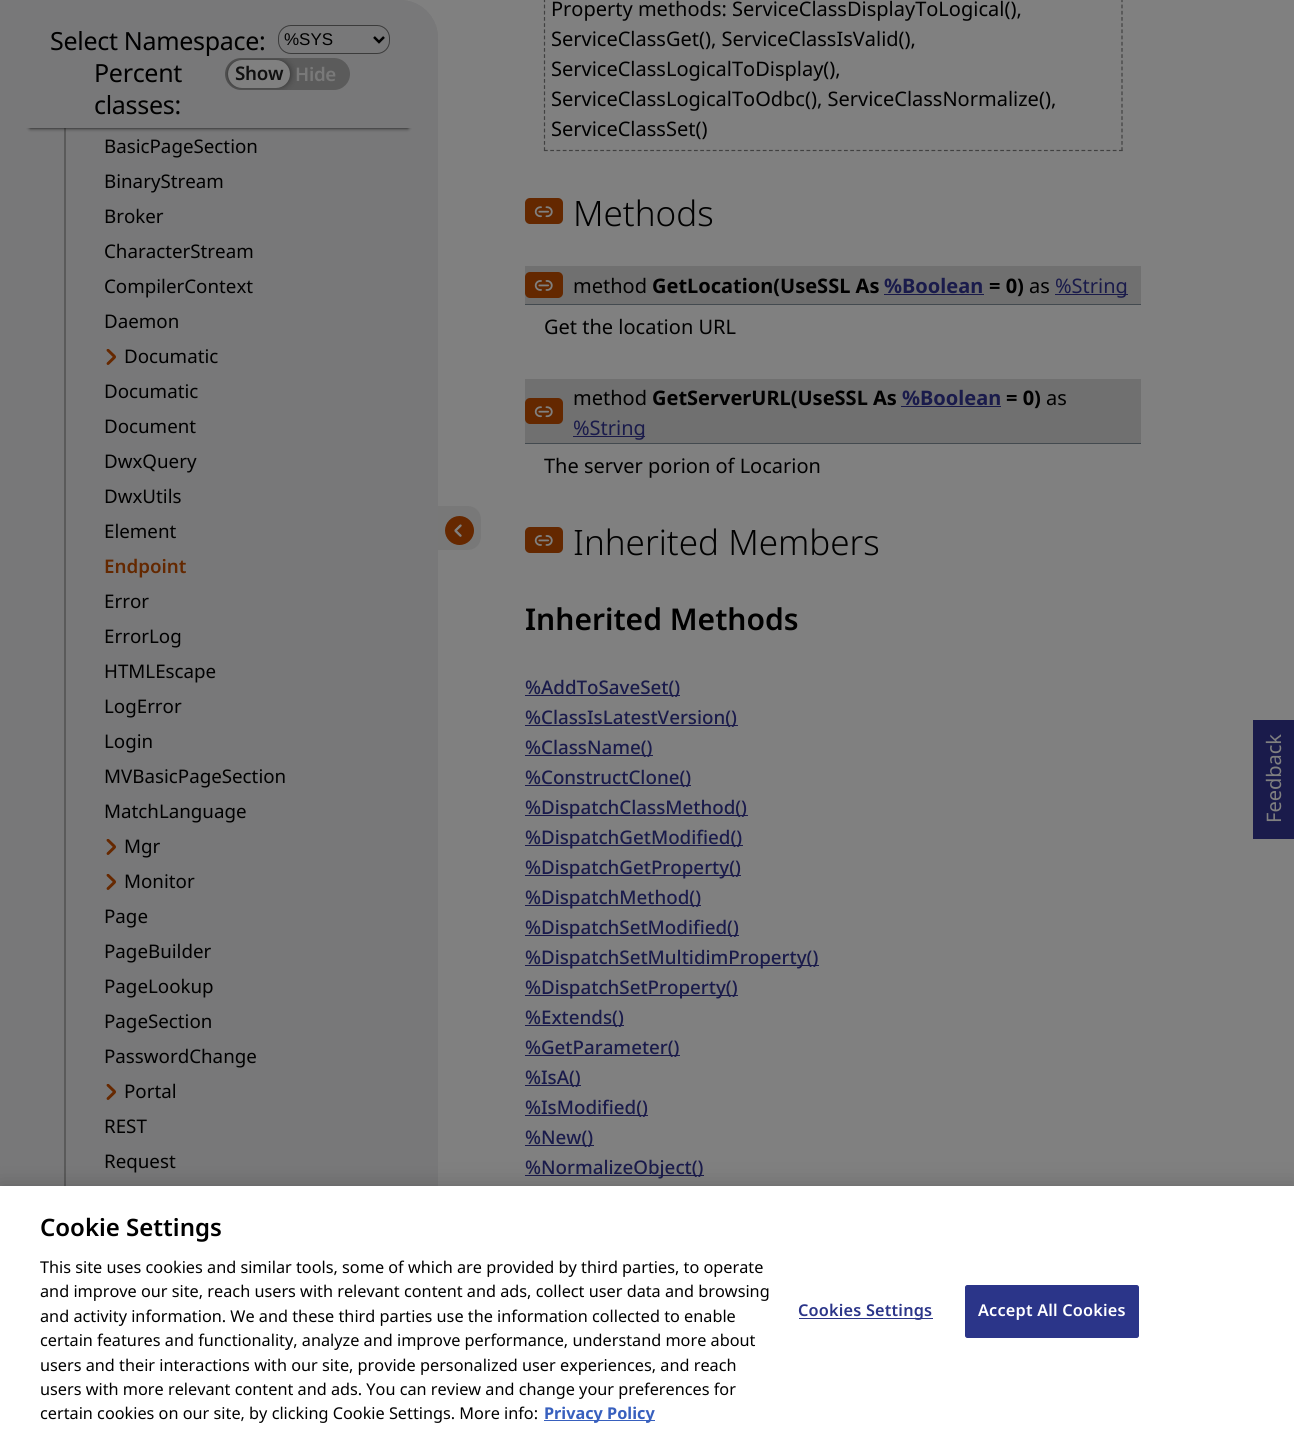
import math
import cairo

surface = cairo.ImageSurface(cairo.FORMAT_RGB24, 1294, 1438)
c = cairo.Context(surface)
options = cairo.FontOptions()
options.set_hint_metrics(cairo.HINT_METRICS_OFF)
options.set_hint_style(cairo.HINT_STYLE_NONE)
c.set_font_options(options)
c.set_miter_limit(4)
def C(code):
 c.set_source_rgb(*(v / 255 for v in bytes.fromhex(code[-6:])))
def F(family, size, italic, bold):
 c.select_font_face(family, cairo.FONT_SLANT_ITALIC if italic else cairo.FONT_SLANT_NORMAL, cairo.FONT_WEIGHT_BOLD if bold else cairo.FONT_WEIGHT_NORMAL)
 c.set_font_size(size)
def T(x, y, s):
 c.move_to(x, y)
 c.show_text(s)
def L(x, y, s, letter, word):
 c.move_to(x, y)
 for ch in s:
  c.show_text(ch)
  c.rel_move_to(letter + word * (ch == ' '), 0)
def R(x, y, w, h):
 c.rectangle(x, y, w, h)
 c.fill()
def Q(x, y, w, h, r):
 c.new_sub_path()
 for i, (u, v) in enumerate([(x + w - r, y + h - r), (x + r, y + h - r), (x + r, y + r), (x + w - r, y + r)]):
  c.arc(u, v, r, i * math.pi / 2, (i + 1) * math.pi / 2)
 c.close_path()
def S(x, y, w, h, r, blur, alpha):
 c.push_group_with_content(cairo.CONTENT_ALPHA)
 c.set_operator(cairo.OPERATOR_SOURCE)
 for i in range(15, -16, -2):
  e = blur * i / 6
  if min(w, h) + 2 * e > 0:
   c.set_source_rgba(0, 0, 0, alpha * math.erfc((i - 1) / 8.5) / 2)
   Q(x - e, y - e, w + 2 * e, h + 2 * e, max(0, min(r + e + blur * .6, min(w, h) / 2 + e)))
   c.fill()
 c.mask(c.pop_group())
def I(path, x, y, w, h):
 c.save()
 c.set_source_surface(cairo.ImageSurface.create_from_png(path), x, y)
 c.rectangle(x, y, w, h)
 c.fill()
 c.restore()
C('808080')
c.paint()
C('787879')
c.new_path()
c.move_to(0,0)
c.line_to(400,0)
c.curve_to(421,0,438,17,438,38)
c.line_to(438,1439)
c.line_to(0,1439)
c.close_path()
c.fill()
C('5a5a5a')
R(64,128,2,1058)
C('0b0b0b')
S(30,60,378,68,0,2,1)
C('787879')
c.new_path()
c.move_to(0,0)
c.line_to(400,0)
c.curve_to(421,0,438,17,438,38)
c.line_to(438,128)
c.line_to(0,128)
c.close_path()
c.fill()
F('Noto Sans',25,0,0)
C('000000')
L(50,50,'Select Namespace:',-.3,0)
Q(278.5,25.5,111,28,12.5)
C('3b3b3b')
c.set_line_width(1)
c.stroke()
c.new_path()
c.move_to(374,37)
c.line_to(379,42)
c.line_to(384,37)
C('000000')
c.set_line_width(2.5)
c.stroke()
F('Liberation Sans',17,0,0)
T(284,45,'%SYS')
F('Noto Sans',25,0,0)
L(94,82,'Percent',-.3,0)
C('5b5b5b')
Q(225,58,125,32,16)
c.fill()
c.save()
Q(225,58,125,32,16)
c.clip()
C('090909')
S(230,63,58,22,11,4,1)
c.restore()
C('808080')
Q(228,60,62,28,14)
c.fill()
F('Noto Sans SemiBold',18.75,0,0)
C('111111')
L(235,80,'Show',-.3,0)
C('797979')
L(295,81,'Hide',-.3,0)
F('Noto Sans',25,0,0)
C('000000')
L(94,114,'classes:',-.3,0)
F('Noto Sans',18.75,0,0)
T(104,153,'BasicPageSection')
T(104,188,'BinaryStream')
T(104,223,'Broker')
T(104,258,'CharacterStream')
T(104,293,'CompilerContext')
T(104,328,'Daemon')
I('1.png',106,349,10,16)
T(124,363,'Documatic')
T(104,398,'Documatic')
T(104,433,'Document')
T(104,468,'DwxQuery')
T(104,503,'DwxUtils')
T(104,538,'Element')
F('Noto Sans SemiBold',18.75,0,0)
C('642800')
T(104,573,'Endpoint')
F('Noto Sans',18.75,0,0)
C('000000')
T(104,608,'Error')
T(104,643,'ErrorLog')
T(104,678,'HTMLEscape')
T(104,713,'LogError')
T(104,748,'Login')
T(104,783,'MVBasicPageSection')
T(104,818,'MatchLanguage')
I('1.png',106,839,10,16)
T(124,853,'Mgr')
I('1.png',106,874,10,16)
T(124,888,'Monitor')
T(104,923,'Page')
T(104,958,'PageBuilder')
T(104,993,'PageLookup')
T(104,1028,'PageSection')
T(104,1063,'PasswordChange')
I('1.png',106,1084,10,16)
T(124,1098,'Portal')
T(104,1133,'REST')
T(104,1168,'Request')
C('787878')
c.new_path()
c.move_to(438,506)
c.line_to(468,506)
c.curve_to(475,506,481,512,481,519)
c.line_to(481,537)
c.curve_to(481,544,475,550,468,550)
c.line_to(438,550)
c.close_path()
c.fill()
I('2.png',445,516,29,29)
c.new_path()
c.move_to(1122,-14)
c.line_to(1122,151)
C('404040')
c.set_line_width(1.2)
c.set_dash([3.75,2.45])
c.stroke()
c.new_path()
c.move_to(544,150.5)
c.line_to(1122.5,150.5)
c.set_dash([3.75,2.5])
c.stroke()
c.new_path()
c.move_to(544.5,-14)
c.line_to(544.5,151)
c.set_dash([3.75,2.45])
c.stroke()
F('Noto Sans',20,0,0)
C('000000')
T(551,16,'Property methods: ServiceClassDisplayToLogical(),')
T(551,46,'ServiceClassGet(), ServiceClassIsValid(),')
T(551,76,'ServiceClassLogicalToDisplay(),')
T(551,106,'ServiceClassLogicalToOdbc(), ServiceClassNormalize(),')
T(551,136,'ServiceClassSet()')
I('3.png',525,198,38,26)
F('Noto Sans Light',35,0,0)
T(573,226,'Methods')
C('707070')
R(525,266,616,38)
C('434a4f')
R(525,304,616,1)
I('4.png',525,272,38,26)
F('Noto Sans',20,0,0)
C('000000')
T(573,293,'method')
F('Noto Sans',20,0,1)
T(652,293,'GetLocation(UseSSL As')
C('1a1b4b')
T(884,293,'%Boolean')
R(884,294,100,1)
C('000000')
T(989,293,'= 0)')
F('Noto Sans',20,0,0)
T(1029,293,'as')
C('1a1b4b')
R(1055,294,73,1)
T(1055,293,'%String')
C('000000')
T(544,334,'Get the location URL')
C('707070')
R(525,379,616,64)
C('434a4f')
R(525,443,616,1)
I('5.png',525,398,38,26)
C('000000')
T(573,405,'method')
F('Noto Sans',20,0,1)
T(652,405,'GetServerURL(UseSSL As')
C('1a1b4b')
T(902,405,'%Boolean')
R(901,406,100,1)
C('000000')
T(1006,405,'= 0)')
F('Noto Sans',20,0,0)
T(1046,405,'as')
C('1a1b4b')
R(573,436,72,1)
T(573,435,'%String')
C('000000')
T(544,473,'The server porion of Locarion')
I('6.png',525,527,38,26)
F('Noto Sans Light',35,0,0)
T(573,555,'Inherited Members')
F('Noto Sans SemiBold',30,0,0)
T(525,630,'Inherited Methods')
C('1a1b4b')
R(525,695,155,1)
F('Noto Sans Medium',18.75,0,0)
T(525,694,'%AddToSaveSet()')
R(525,725,213,1)
T(525,724,'%ClassIsLatestVersion()')
R(525,755,128,1)
T(525,754,'%ClassName()')
R(525,785,166,1)
T(525,784,'%ConstructClone()')
R(525,815,223,1)
T(525,814,'%DispatchClassMethod()')
R(525,845,218,1)
T(525,844,'%DispatchGetModified()')
R(525,875,216,1)
T(525,874,'%DispatchGetProperty()')
R(525,905,176,1)
T(525,904,'%DispatchMethod()')
R(525,935,214,1)
T(525,934,'%DispatchSetModified()')
R(525,965,294,1)
T(525,964,'%DispatchSetMultidimProperty()')
R(525,995,213,1)
T(525,994,'%DispatchSetProperty()')
R(525,1025,99,1)
T(525,1024,'%Extends()')
R(525,1055,155,1)
T(525,1054,'%GetParameter()')
R(525,1085,56,1)
T(525,1084,'%IsA()')
R(525,1115,123,1)
T(525,1114,'%IsModified()')
R(525,1145,69,1)
T(525,1144,'%New()')
R(525,1175,179,1)
T(525,1174,'%NormalizeObject()')
R(1253,720,41,119)
F('Noto Sans',20,0,0)
C('808080')
c.save()
c.translate(1281,823)
c.rotate(-90 * math.pi / 180)
T(0,0,'Feedback')
c.restore()
C('000000')
S(0,1186,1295,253,0,11,.2)
C('ffffff')
R(0,1186,1294,252)
F('Noto Sans SemiBold',24,0,0)
C('000000')
T(40,1236,'Cookie Settings')
F('Noto Sans',16.25,0,0)
T(40,1273,'This site uses cookies and similar tools, some of which are provided by third parties, to operate')
T(40,1297,'and improve our site, reach users with relevant content and ads, collect user data and browsing')
T(40,1322,'and activity information. We and these third parties use the information collected to enable')
T(40,1346,'certain features and functionality, analyze and improve performance, understand more about')
T(40,1371,'users and their interactions with our site, provide personalized user experiences, and reach')
T(40,1395,'users with more relevant content and ads. You can review and change your preferences for')
T(40,1419,'certain cookies on our site, by clicking Cookie Settings. More info:')
C('3860be')
R(544,1420,111,1)
F('Noto Sans',16.25,0,1)
T(544,1419,'Privacy Policy')
C('2b3589')
R(799,1318,134,1)
F('Noto Sans SemiBold',16.25,0,0)
L(798,1316,'Cookies Settings',.2,0)
Q(965.5,1285.5,173,52,2)
c.fill_preserve()
c.set_line_width(1)
c.set_dash([])
c.stroke()
C('ffffff')
L(978,1316,'Accept All Cookies',.2,0)
surface.write_to_png('o.png')
